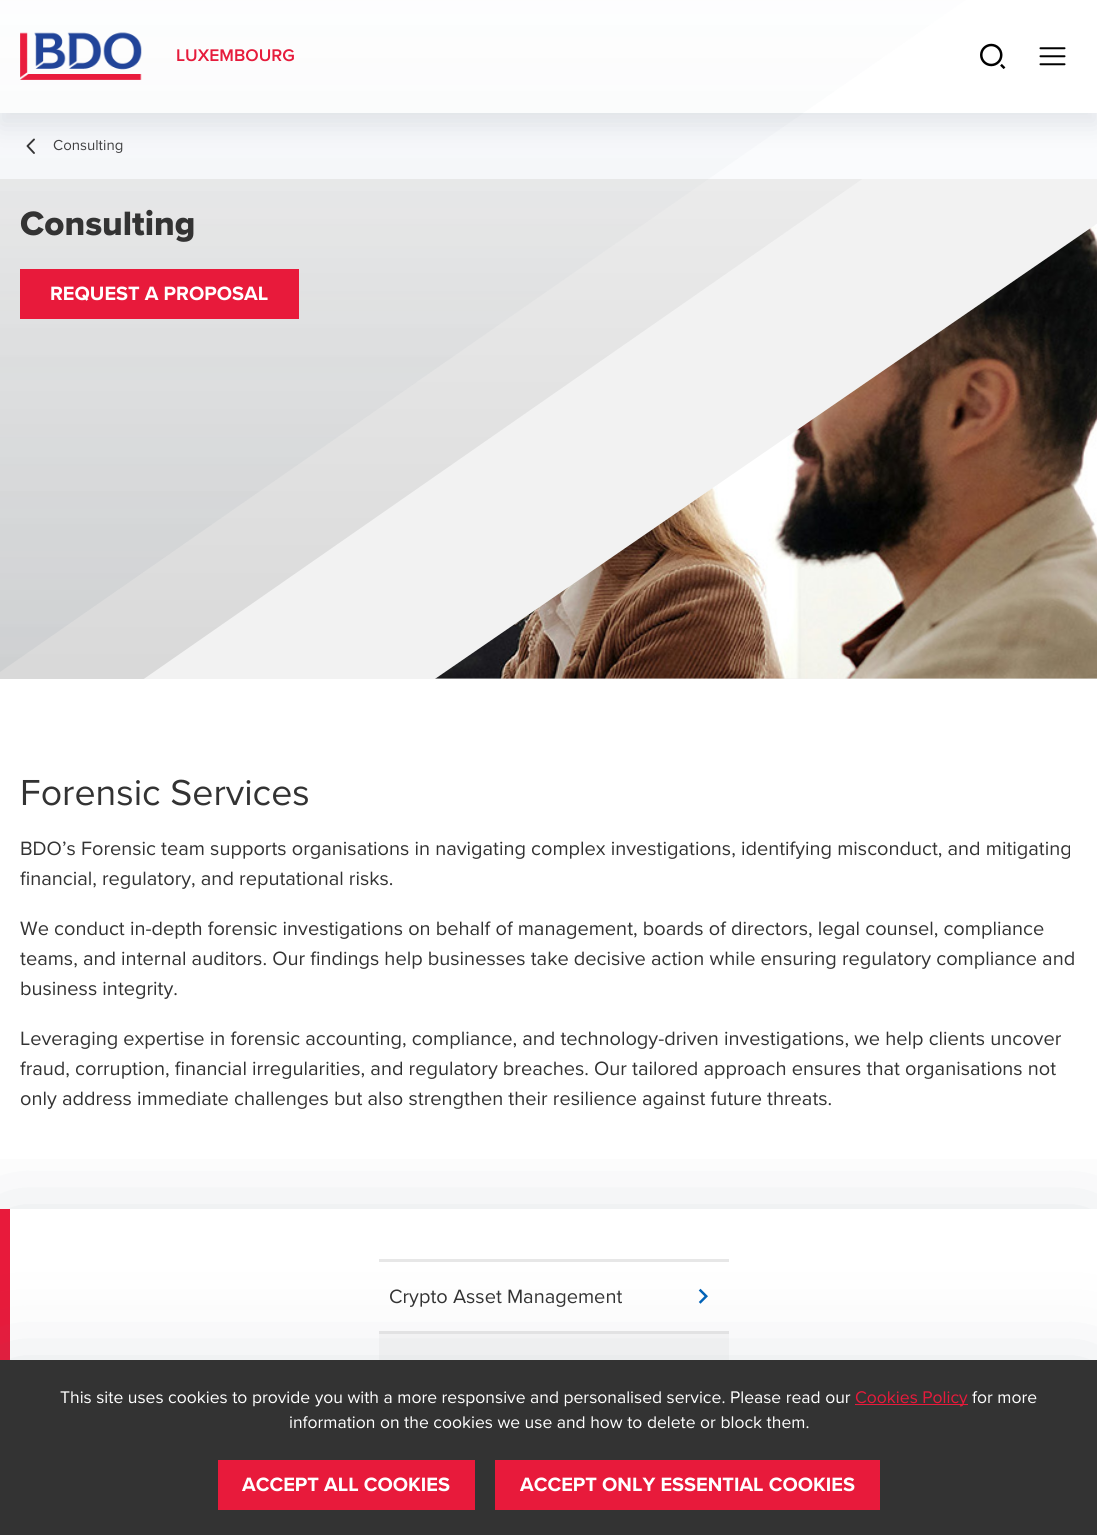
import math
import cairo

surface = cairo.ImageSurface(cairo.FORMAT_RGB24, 1097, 1535)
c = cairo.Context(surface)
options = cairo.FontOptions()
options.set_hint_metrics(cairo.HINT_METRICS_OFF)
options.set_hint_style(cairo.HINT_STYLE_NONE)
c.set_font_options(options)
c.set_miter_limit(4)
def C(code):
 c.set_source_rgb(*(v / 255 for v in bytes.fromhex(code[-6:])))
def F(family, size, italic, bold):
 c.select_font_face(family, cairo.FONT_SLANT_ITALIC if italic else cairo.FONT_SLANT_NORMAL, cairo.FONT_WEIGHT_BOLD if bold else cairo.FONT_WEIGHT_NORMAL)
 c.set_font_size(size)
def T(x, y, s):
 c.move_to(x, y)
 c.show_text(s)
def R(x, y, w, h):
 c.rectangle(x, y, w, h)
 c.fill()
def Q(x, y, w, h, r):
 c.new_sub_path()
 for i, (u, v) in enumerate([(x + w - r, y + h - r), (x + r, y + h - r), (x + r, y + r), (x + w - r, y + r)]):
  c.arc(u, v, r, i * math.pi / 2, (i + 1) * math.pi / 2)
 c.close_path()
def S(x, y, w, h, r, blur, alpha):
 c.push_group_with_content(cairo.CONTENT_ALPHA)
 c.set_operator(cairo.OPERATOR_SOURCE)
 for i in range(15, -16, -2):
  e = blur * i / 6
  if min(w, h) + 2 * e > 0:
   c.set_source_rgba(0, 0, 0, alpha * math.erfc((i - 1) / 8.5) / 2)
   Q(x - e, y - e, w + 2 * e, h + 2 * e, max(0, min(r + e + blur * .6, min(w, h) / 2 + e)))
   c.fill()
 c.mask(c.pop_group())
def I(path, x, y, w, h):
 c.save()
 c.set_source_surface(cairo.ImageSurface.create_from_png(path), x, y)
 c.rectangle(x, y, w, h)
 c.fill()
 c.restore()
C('ffffff')
c.paint()
C('fafbfd')
R(0,113,1097,66)
c.new_path()
c.move_to(34,153)
c.line_to(27.5,146)
c.line_to(34,139.5)
C('333333')
c.set_line_width(1.9)
c.set_line_cap(cairo.LINE_CAP_ROUND)
c.set_line_join(cairo.LINE_JOIN_ROUND)
c.stroke()
c.save()
c.set_fill_rule(cairo.FILL_RULE_EVEN_ODD)
c.new_path()
c.move_to(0,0)
c.line_to(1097,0)
c.line_to(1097,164)
c.line_to(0,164)
c.close_path()
c.move_to(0,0)
c.line_to(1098,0)
c.line_to(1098,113)
c.line_to(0,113)
c.close_path()
c.clip()
C('5b6e7f')
S(0,13,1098,112,0,12.5,.15)
c.restore()
I('1.png',20,32,122,48)
F('Proxima Nova SemiBold',17.5,0,0)
C('e81a3b')
T(176,61,'LUXEMBOURG')
I('2.png',980,43,26,26)
I('3.png',1039,47,27,19)
F('Proxima Nova',15,0,0)
C('404040')
T(53,150,'Consulting')
C('f2f2f2')
R(435,678,662,1)
I('4.png',435,223,662,456)
c.save()
c.rectangle(0,179,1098,500)
c.clip()
c.new_path()
c.move_to(0,-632)
c.line_to(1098,-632)
c.line_to(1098,223)
c.line_to(0,978)
c.close_path()
c.fill()
gradient = cairo.LinearGradient(549,779,549,15)
gradient.add_color_stop_rgba(0,0.863,0.875,0.882,1)
gradient.add_color_stop_rgba(0,0.835,0.835,0.835,1)
gradient.add_color_stop_rgba(1,0.945,0.945,0.945,1)
c.set_source(gradient)
c.new_path()
c.move_to(0,15)
c.line_to(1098,15)
c.line_to(0,779)
c.close_path()
c.fill()
c.restore()
gradient = cairo.LinearGradient(549,672,549,-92)
gradient.add_color_stop_rgba(0,0.2,0.2,0.2,.09)
gradient.add_color_stop_rgba(0,0.388,0.471,0.537,.09)
gradient.add_color_stop_rgba(1,0.388,0.471,0.537,0)
c.set_source(gradient)
c.new_path()
c.move_to(0,-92)
c.line_to(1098,-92)
c.line_to(0,672)
c.close_path()
c.fill()
F('Proxima Nova ExtraBold',35,0,0)
C('333333')
T(20,235,'Consulting')
gradient = cairo.LinearGradient(-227,97,100,486)
gradient.add_color_stop_rgba(.5,0.357,0.431,0.498,1)
gradient.add_color_stop_rgba(.5,0.91,0.102,0.231,1)
c.set_source(gradient)
R(20,269,279,50)
F('Proxima Nova',20,0,1)
C('ffffff')
T(50,300,'REQUEST A PROPOSAL')
F('Proxima Nova',37.5,0,0)
C('333333')
T(20,805,'Forensic Services')
F('Proxima Nova',20,0,0)
T(20,855,'BDO’s Forensic team supports organisations in navigating complex investigations, identifying misconduct, and mitigating')
T(20,885,'financial, regulatory, and reputational risks.')
T(20,935,'We conduct in-depth forensic investigations on behalf of management, boards of directors, legal counsel, compliance')
T(20,965,'teams, and internal auditors. Our findings help businesses take decisive action while ensuring regulatory compliance and')
T(20,995,'business integrity.')
T(20,1045,'Leveraging expertise in forensic accounting, compliance, and technology-driven investigations, we help clients uncover')
T(20,1075,'fraud, corruption, financial irregularities, and regulatory breaches. Our tailored approach ensures that organisations not')
T(20,1105,'only address immediate challenges but also strengthen their resilience against future threats.')
c.save()
c.rectangle(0,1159,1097,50)
c.clip()
C('5b6e7f')
S(0,1229,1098,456,0,50,.25)
c.restore()
C('e81a3b')
R(0,1209,10,151)
C('e7e7e7')
R(379,1259,350,3)
C('333333')
T(389,1303,'Crypto Asset Management')
I('5.png',698,1288,10,16)
C('f8f8f8')
R(379,1334,350,26)
C('e7e7e7')
R(379,1331,350,3)
C('5b6e7f')
S(0,1380,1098,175,0,50,.25)
C('333333')
R(0,1360,1097,175)
F('Proxima Nova',17.5,0,0)
C('ffffff')
T(60,1403,'This site uses cookies to provide you with a more responsive and personalised service. Please read our')
C('e81a3b')
R(855,1404,113,1)
T(855,1403,'Cookies Policy')
C('ffffff')
T(972,1403,'for more')
T(289,1428,'information on the cookies we use and how to delete or block them.')
gradient = cairo.LinearGradient(-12,1302,292,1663)
gradient.add_color_stop_rgba(.5,0.357,0.431,0.498,1)
gradient.add_color_stop_rgba(.5,0.91,0.102,0.231,1)
c.set_source(gradient)
R(218,1460,257,50)
F('Proxima Nova',20,0,1)
C('ffffff')
T(242,1491,'ACCEPT ALL COOKIES')
gradient = cairo.LinearGradient(159,1220,600,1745)
gradient.add_color_stop_rgba(.5,0.357,0.431,0.498,1)
gradient.add_color_stop_rgba(.5,0.91,0.102,0.231,1)
c.set_source(gradient)
R(495,1460,385,50)
C('ffffff')
T(520,1491,'ACCEPT ONLY ESSENTIAL COOKIES')
surface.write_to_png('o.png')
